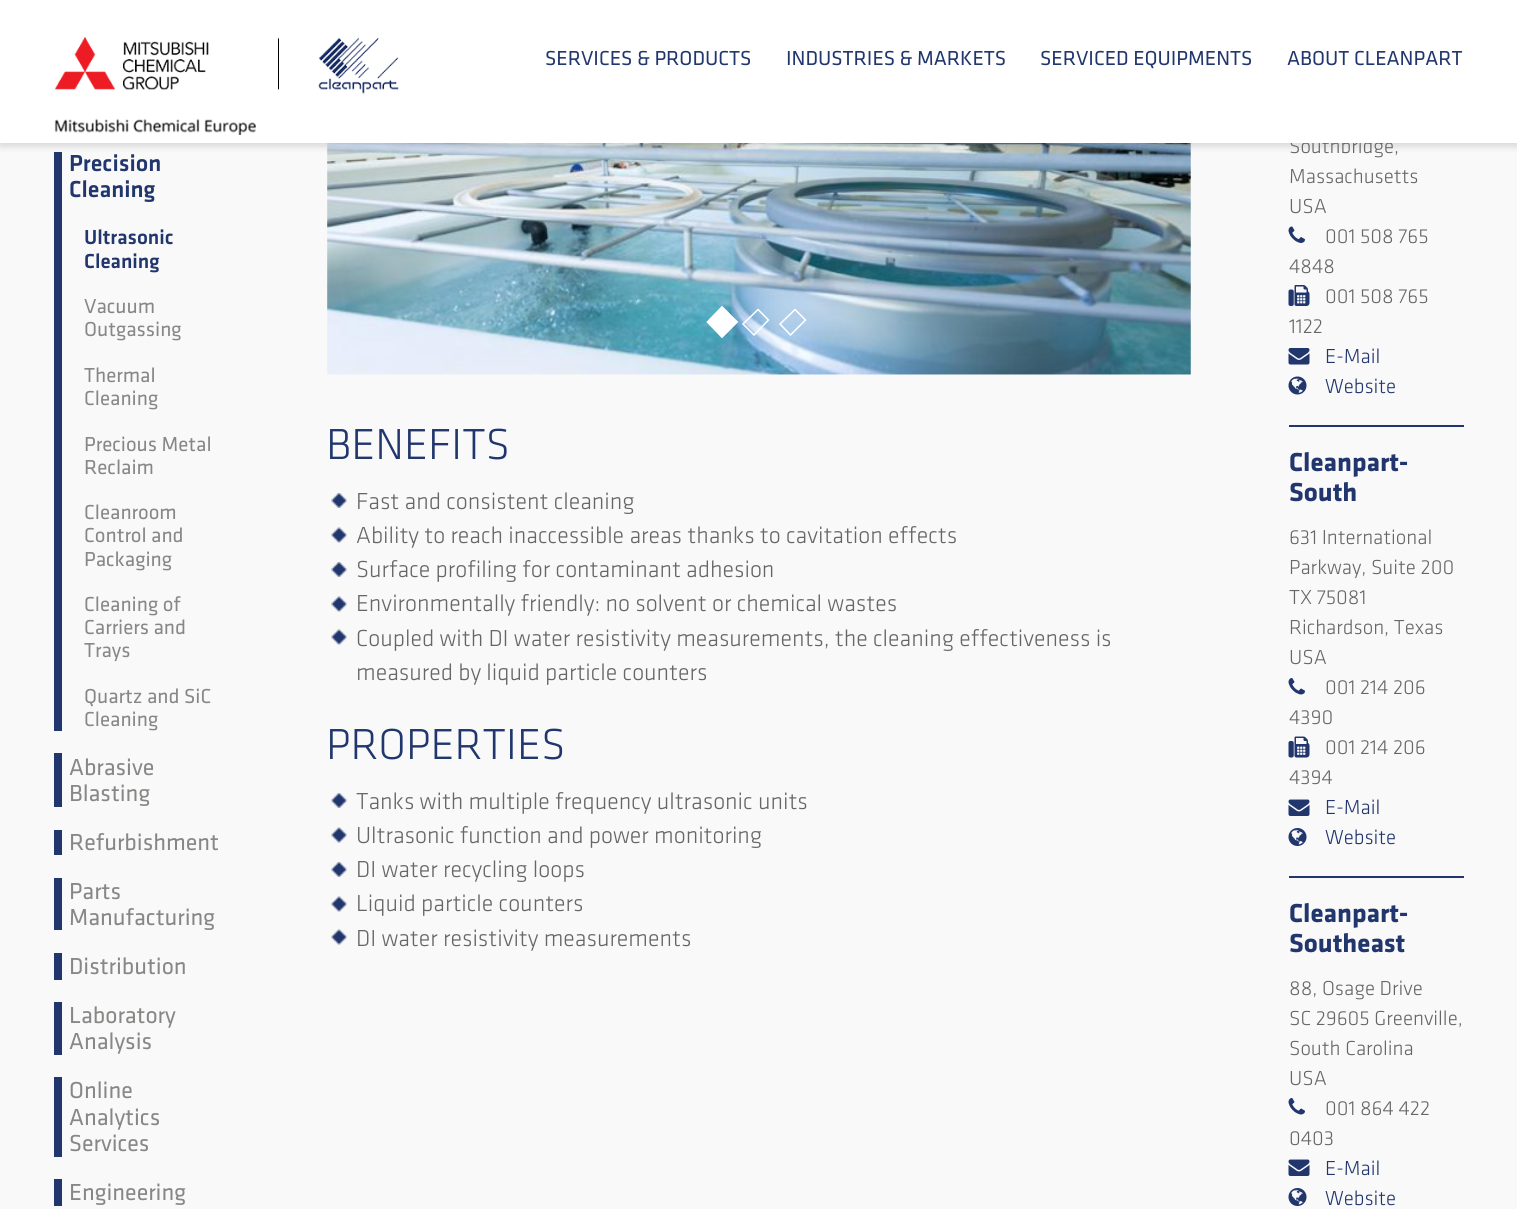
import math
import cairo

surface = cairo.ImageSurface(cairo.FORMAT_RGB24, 1517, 1209)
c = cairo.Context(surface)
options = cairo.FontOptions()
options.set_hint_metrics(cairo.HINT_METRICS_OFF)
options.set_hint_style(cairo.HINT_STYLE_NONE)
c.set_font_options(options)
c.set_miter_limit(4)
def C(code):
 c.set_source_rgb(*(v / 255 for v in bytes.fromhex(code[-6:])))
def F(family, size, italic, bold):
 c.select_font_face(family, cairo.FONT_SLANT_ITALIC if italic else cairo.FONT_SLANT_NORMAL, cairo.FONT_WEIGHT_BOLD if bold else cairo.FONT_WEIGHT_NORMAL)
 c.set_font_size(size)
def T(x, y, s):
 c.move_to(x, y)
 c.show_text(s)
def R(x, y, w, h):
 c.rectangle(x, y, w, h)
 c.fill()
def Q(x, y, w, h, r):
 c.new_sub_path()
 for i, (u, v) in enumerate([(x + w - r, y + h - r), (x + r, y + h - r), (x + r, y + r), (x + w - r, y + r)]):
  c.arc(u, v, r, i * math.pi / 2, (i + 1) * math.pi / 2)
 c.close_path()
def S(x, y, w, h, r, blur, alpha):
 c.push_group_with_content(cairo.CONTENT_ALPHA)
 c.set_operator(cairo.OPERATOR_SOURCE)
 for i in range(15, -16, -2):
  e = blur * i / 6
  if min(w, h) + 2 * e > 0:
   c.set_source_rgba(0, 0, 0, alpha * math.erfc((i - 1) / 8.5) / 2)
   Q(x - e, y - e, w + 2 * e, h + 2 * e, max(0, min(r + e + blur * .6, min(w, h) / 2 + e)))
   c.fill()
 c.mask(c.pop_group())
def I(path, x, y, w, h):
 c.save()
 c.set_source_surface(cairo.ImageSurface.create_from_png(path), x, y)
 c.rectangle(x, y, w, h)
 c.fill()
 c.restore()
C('f9f9f9')
c.paint()
C('21366d')
R(54,152,8,579)
I('2.png',327,143,864,232)
C('000000')
S(0,3,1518,143,0,4,.15)
F('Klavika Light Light',21,0,0)
C('666666')
T(1289,153,'Southbridge,')
C('ffffff')
R(0,0,1517,143)
I('1.png',54,37,345,98)
F('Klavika',21,0,0)
C('21366d')
T(545,65,'SERVICES & PRODUCTS')
T(786,65,'INDUSTRIES & MARKETS')
T(1040,65,'SERVICED EQUIPMENTS')
T(1287,65,'ABOUT CLEANPART')
F('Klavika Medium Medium',24,0,0)
T(69,171,'Precision')
T(69,197,'Cleaning')
F('Klavika Medium Medium',21,0,0)
T(84,244,'Ultrasonic')
T(84,268,'Cleaning')
F('Klavika',21,0,0)
C('878786')
T(84,313,'Vacuum')
T(84,336,'Outgassing')
T(84,382,'Thermal')
T(84,405,'Cleaning')
T(84,451,'Precious Metal')
T(84,474,'Reclaim')
T(84,519,'Cleanroom')
T(84,542,'Control and')
T(84,566,'Packaging')
T(84,611,'Cleaning of')
T(84,634,'Carriers and')
T(84,657,'Trays')
T(84,703,'Quartz and SiC')
T(84,726,'Cleaning')
C('21366d')
R(54,753,8,54)
F('Klavika',24,0,0)
C('878786')
T(69,775,'Abrasive')
T(69,801,'Blasting')
C('21366d')
R(54,830,8,25)
C('878786')
T(69,850,'Refurbishment')
C('21366d')
R(54,878,8,52)
C('878786')
T(69,899,'Parts')
T(69,925,'Manufacturing')
C('21366d')
R(54,953,8,27)
C('878786')
T(69,974,'Distribution')
C('21366d')
R(54,1002,8,53)
C('878786')
T(69,1023,'Laboratory')
T(69,1049,'Analysis')
C('21366d')
R(54,1077,8,80)
C('878786')
T(69,1098,'Online')
T(69,1125,'Analytics')
T(69,1151,'Services')
C('21366d')
R(54,1179,8,27)
C('878786')
T(69,1200,'Engineering')
C('ffffff')
c.new_path()
c.move_to(722,306)
c.line_to(738,322)
c.line_to(722,338)
c.line_to(706.5,322)
c.close_path()
c.fill()
c.new_path()
c.move_to(722,307)
c.line_to(737,322)
c.line_to(722,337)
c.line_to(707.5,322)
c.close_path()
c.set_line_width(1.5)
c.stroke()
c.new_path()
c.move_to(758,309.5)
c.line_to(768.5,320)
c.line_to(754,335)
c.line_to(743,324)
c.close_path()
c.stroke()
c.new_path()
c.move_to(795,309.5)
c.line_to(805.5,320)
c.line_to(790.5,335)
c.line_to(780,324)
c.close_path()
c.stroke()
F('Klavika Light Light',45,0,0)
C('21366d')
T(326,459,'BENEFITS')
I('3.png',331,493,16,15)
F('Klavika Light Light',24,0,0)
C('666666')
T(356,509,'Fast and consistent cleaning')
I('4.png',331,527,16,16)
T(356,543,'Ability to reach inaccessible areas thanks to cavitation effects')
I('3.png',331,562,16,15)
T(356,577,'Surface profiling for contaminant adhesion')
I('4.png',331,596,16,16)
T(356,611,'Environmentally friendly: no solvent or chemical wastes')
I('4.png',331,629,16,16)
T(356,646,'Coupled with DI water resistivity measurements, the cleaning effectiveness is')
T(356,680,'measured by liquid particle counters')
F('Klavika Light Light',45,0,0)
C('21366d')
T(326,759,'PROPERTIES')
I('3.png',331,793,16,15)
F('Klavika Light Light',24,0,0)
C('666666')
T(356,809,'Tanks with multiple frequency ultrasonic units')
I('4.png',331,827,16,16)
T(356,843,'Ultrasonic function and power monitoring')
I('3.png',331,862,16,15)
T(356,877,'DI water recycling loops')
I('4.png',331,896,16,16)
T(356,911,'Liquid particle counters')
I('4.png',331,929,16,16)
T(356,946,'DI water resistivity measurements')
C('21366d')
R(1289,425,175,2)
F('Klavika Light Light',21,0,0)
C('666666')
T(1289,183,'Massachusetts')
T(1289,213,'USA')
I('5.png',1288,226,17,17)
T(1325,243,'001 508 765')
T(1289,273,'4848')
I('6.png',1288,285,22,21)
T(1325,303,'001 508 765')
T(1289,333,'1122')
I('7.png',1288,348,22,17)
C('21366d')
T(1325,363,'E-Mail')
I('8.png',1288,376,19,19)
T(1325,393,'Website')
R(1289,876,175,2)
F('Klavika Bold',27,0,1)
T(1289,471,'Cleanpart-')
T(1289,501,'South')
F('Klavika Light Light',21,0,0)
C('666666')
T(1289,544,'631 International')
T(1289,574,'Parkway, Suite 200')
T(1289,604,'TX 75081')
T(1289,634,'Richardson, Texas')
T(1289,664,'USA')
I('9.png',1288,678,17,17)
T(1325,694,'001 214 206')
T(1289,724,'4390')
I('10.png',1288,736,22,22)
T(1325,754,'001 214 206')
T(1289,784,'4394')
I('11.png',1288,799,22,17)
C('21366d')
T(1325,814,'E-Mail')
I('12.png',1288,828,19,18)
T(1325,844,'Website')
F('Klavika Bold',27,0,1)
T(1289,922,'Cleanpart-')
T(1289,952,'Southeast')
F('Klavika Light Light',21,0,0)
C('666666')
T(1289,995,'88, Osage Drive')
T(1289,1025,'SC 29605 Greenville,')
T(1289,1055,'South Carolina')
T(1289,1085,'USA')
I('9.png',1288,1098,17,17)
T(1325,1115,'001 864 422')
T(1289,1145,'0403')
I('11.png',1288,1159,22,17)
C('21366d')
T(1325,1175,'E-Mail')
I('12.png',1288,1188,19,18)
T(1325,1205,'Website')
surface.write_to_png('o.png')
